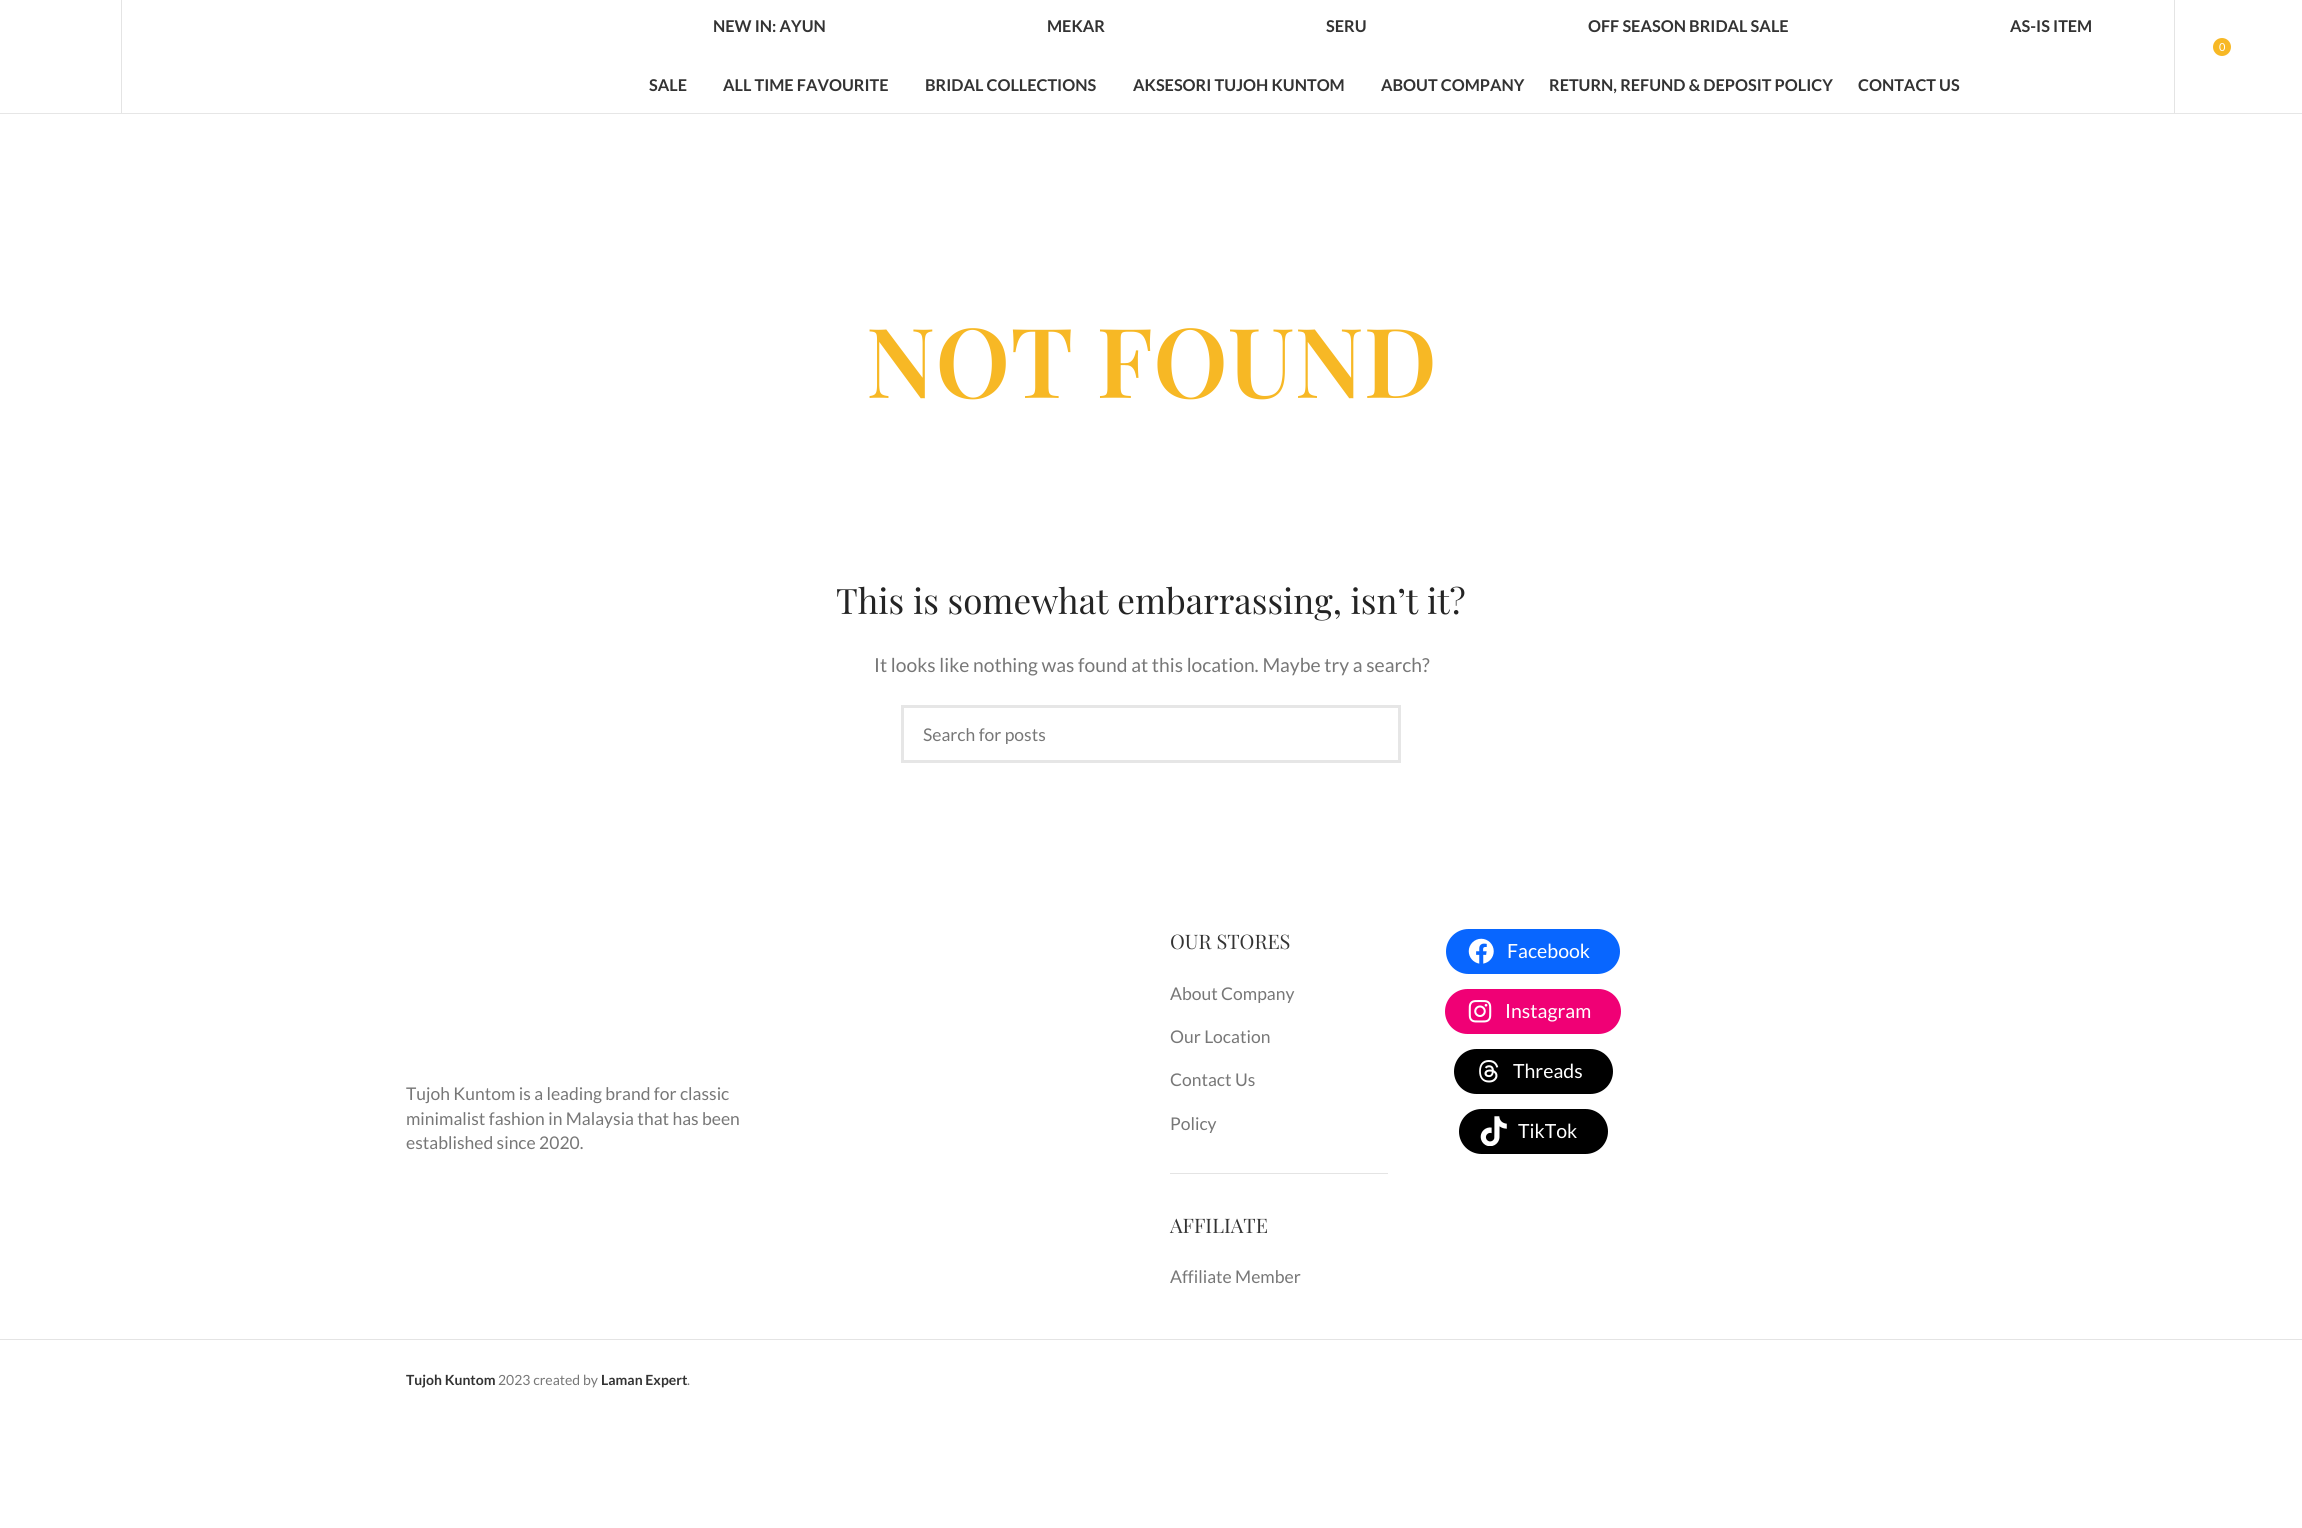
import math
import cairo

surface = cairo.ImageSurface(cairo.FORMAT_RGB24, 2302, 1528)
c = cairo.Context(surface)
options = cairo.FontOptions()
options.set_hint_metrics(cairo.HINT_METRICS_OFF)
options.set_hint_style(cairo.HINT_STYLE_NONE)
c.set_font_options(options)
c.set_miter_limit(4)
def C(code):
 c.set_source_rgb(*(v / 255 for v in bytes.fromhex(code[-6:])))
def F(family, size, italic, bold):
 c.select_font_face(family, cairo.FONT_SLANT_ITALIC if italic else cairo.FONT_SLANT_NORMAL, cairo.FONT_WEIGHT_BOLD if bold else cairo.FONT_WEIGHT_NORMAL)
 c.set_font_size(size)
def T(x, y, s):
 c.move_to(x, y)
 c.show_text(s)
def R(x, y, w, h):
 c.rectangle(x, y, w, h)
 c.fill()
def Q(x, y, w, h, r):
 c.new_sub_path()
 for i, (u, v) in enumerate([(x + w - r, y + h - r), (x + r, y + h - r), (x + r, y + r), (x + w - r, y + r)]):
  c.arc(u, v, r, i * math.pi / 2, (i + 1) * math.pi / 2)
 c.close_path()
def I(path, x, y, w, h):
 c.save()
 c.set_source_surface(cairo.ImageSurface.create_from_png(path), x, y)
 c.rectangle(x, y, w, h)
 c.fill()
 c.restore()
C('ffffff')
c.paint()
C('e6e6e6')
R(0,113,2302,1)
C('e4e4e4')
R(121,0,1,113)
F('Lato',16.25,0,1)
C('333333')
T(713,32,'NEW IN: AYUN')
T(1047,32,'MEKAR')
T(1326,32,'SERU')
T(1588,32,'OFF SEASON BRIDAL SALE')
T(2010,32,'AS-IS ITEM')
T(649,91,'SALE')
T(723,91,'ALL TIME FAVOURITE')
T(925,91,'BRIDAL COLLECTIONS')
T(1133,91,'AKSESORI TUJOH KUNTOM')
T(1381,91,'ABOUT COMPANY')
T(1549,91,'RETURN, REFUND & DEPOSIT POLICY')
T(1858,91,'CONTACT US')
C('e4e4e4')
R(2174,0,1,113)
C('f7b825')
c.new_path()
c.arc(2222,47,9,0,2 * math.pi)
c.fill()
F('Lato',11,0,0)
C('ffffff')
T(2219,51,'0')
F('Playfair Display SemiBold',96.75,0,0)
C('f7b825')
T(866,398,'NOT FOUND')
F('Playfair Display',35,0,0)
C('242424')
T(836,614,'This is somewhat embarrassing, isn’t it?')
F('Lato',19.25,0,0)
C('777777')
T(874,672,'It looks like nothing was found at this location. Maybe try a search?')
c.rectangle(902.5,706.5,497,55)
C('e6e6e6')
c.set_line_width(3)
c.stroke()
F('Lato',17.5,0,0)
C('777777')
T(923,741,'Search for posts')
T(406,1100,'Tujoh Kuntom is a leading brand for classic')
T(406,1125,'minimalist fashion in Malaysia that has been')
T(406,1149,'established since 2020.')
C('e4e4e4')
R(1170,1173,218,1)
F('Playfair Display',20,0,0)
C('333333')
T(1170,949,'OUR STORES')
F('Lato',17.5,0,0)
C('777777')
T(1170,1000,'About Company')
T(1170,1043,'Our Location')
T(1170,1086,'Contact Us')
T(1170,1130,'Policy')
F('Playfair Display',20,0,0)
C('333333')
T(1170,1233,'AFFILIATE')
F('Lato',17.5,0,0)
C('777777')
T(1170,1283,'Affiliate Member')
C('0866ff')
Q(1446,929,174,45,22.5)
c.fill()
I('1.png',1468,938,26,26)
F('Lato',19.5,0,0)
C('ffffff')
T(1507,958,'Facebook')
C('f00075')
Q(1445,989,176,45,22.5)
c.fill()
I('2.png',1468,1000,24,23)
C('ffffff')
T(1505,1018,'Instagram')
C('000000')
Q(1454,1049,159,45,22.5)
c.fill()
I('3.png',1479,1060,20,23)
C('ffffff')
T(1513,1078,'Threads')
C('000000')
Q(1459,1109,149,45,22.5)
c.fill()
I('4.png',1480,1116,27,30)
C('ffffff')
T(1518,1138,'TikTok')
C('e4e4e4')
R(0,1339,2302,1)
F('Lato',14,0,1)
C('333333')
T(406,1385,'Tujoh Kuntom')
F('Lato',14,0,0)
C('777777')
T(498,1385,'2023 created by')
F('Lato',14,0,1)
C('333333')
T(601,1385,'Laman Expert')
F('Lato',14,0,0)
C('777777')
T(687,1385,'.')
surface.write_to_png('o.png')
